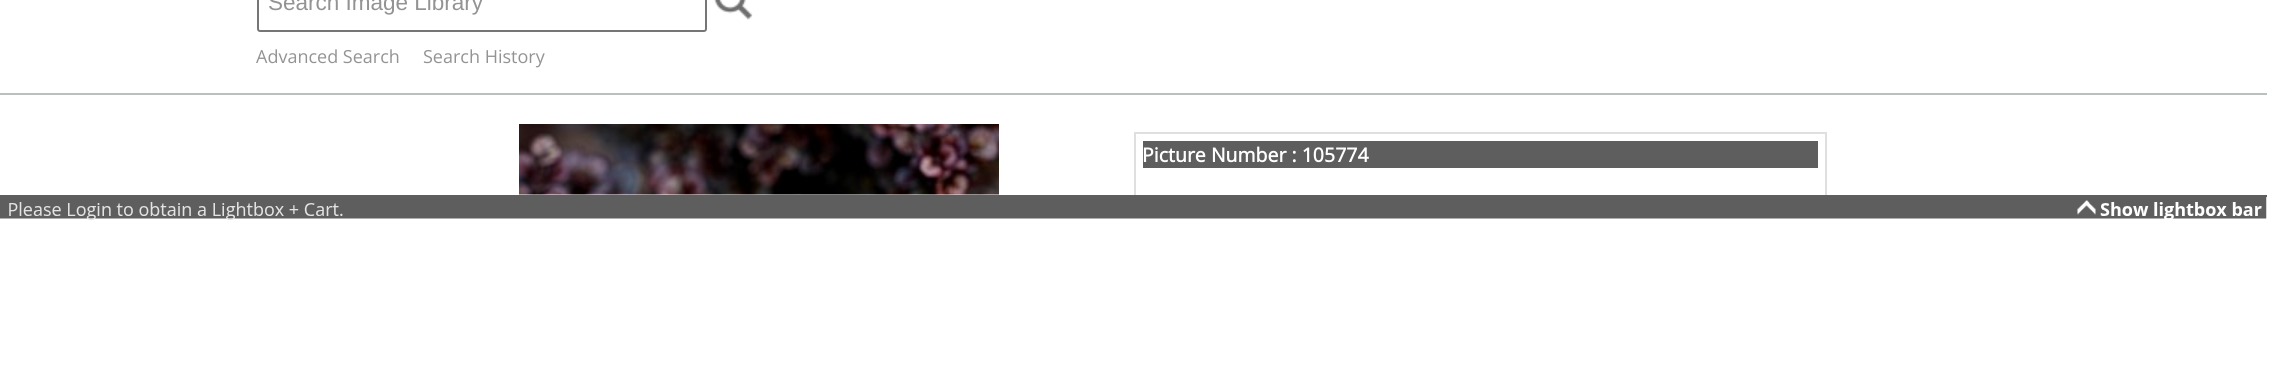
import math
import cairo

surface = cairo.ImageSurface(cairo.FORMAT_RGB24, 2274, 370)
c = cairo.Context(surface)
options = cairo.FontOptions()
options.set_hint_metrics(cairo.HINT_METRICS_OFF)
options.set_hint_style(cairo.HINT_STYLE_NONE)
c.set_font_options(options)
c.set_miter_limit(4)
def C(code):
 c.set_source_rgb(*(v / 255 for v in bytes.fromhex(code[-6:])))
def F(family, size, italic, bold):
 c.select_font_face(family, cairo.FONT_SLANT_ITALIC if italic else cairo.FONT_SLANT_NORMAL, cairo.FONT_WEIGHT_BOLD if bold else cairo.FONT_WEIGHT_NORMAL)
 c.set_font_size(size)
def T(x, y, s):
 c.move_to(x, y)
 c.show_text(s)
def R(x, y, w, h):
 c.rectangle(x, y, w, h)
 c.fill()
def Q(x, y, w, h, r):
 c.new_sub_path()
 for i, (u, v) in enumerate([(x + w - r, y + h - r), (x + r, y + h - r), (x + r, y + r), (x + w - r, y + r)]):
  c.arc(u, v, r, i * math.pi / 2, (i + 1) * math.pi / 2)
 c.close_path()
def I(path, x, y, w, h):
 c.save()
 c.set_source_surface(cairo.ImageSurface.create_from_png(path), x, y)
 c.rectangle(x, y, w, h)
 c.fill()
 c.restore()
C('ffffff')
c.paint()
C('bac0c0')
R(0,93,2267,2)
Q(258,-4,448,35,2)
C('767676')
c.stroke()
F('Liberation Sans',22.5,0,0)
C('939393')
T(268,10,'Search Image Library')
I('1.png',714,0,39,20)
F('Open Sans',18,0,0)
T(256,63,'Advanced Search')
T(423,63,'Search History')
I('2.png',519,124,480,71)
c.save()
c.rectangle(0,0,2267,195)
c.clip()
c.rectangle(1135,133,691,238)
C('dfdfdf')
c.stroke()
c.restore()
C('5e5e5e')
R(1143,141,675,27)
F('Open Sans',19.5,0,1)
C('ffffff')
T(1142,162,'Picture Number : 105774')
C('5e5e5e')
R(0,195,2267,2)
I('3.png',0,197,2267,23)
surface.write_to_png('o.png')
